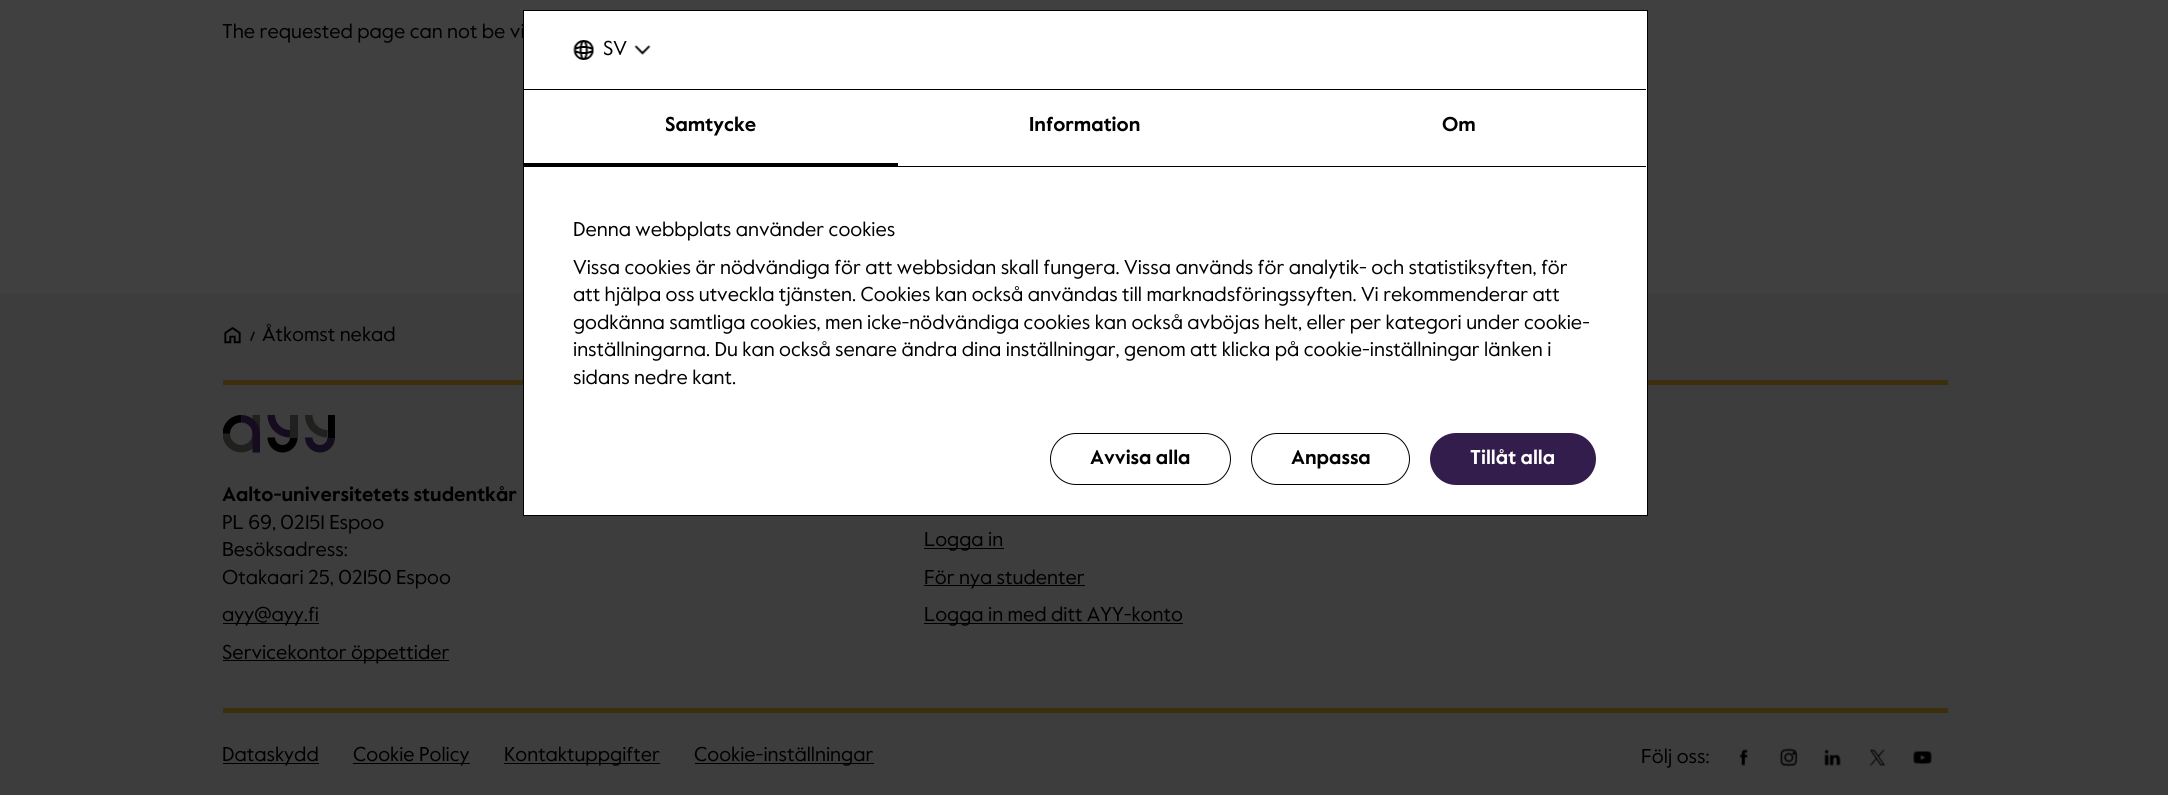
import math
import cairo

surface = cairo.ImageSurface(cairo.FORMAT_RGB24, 2168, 795)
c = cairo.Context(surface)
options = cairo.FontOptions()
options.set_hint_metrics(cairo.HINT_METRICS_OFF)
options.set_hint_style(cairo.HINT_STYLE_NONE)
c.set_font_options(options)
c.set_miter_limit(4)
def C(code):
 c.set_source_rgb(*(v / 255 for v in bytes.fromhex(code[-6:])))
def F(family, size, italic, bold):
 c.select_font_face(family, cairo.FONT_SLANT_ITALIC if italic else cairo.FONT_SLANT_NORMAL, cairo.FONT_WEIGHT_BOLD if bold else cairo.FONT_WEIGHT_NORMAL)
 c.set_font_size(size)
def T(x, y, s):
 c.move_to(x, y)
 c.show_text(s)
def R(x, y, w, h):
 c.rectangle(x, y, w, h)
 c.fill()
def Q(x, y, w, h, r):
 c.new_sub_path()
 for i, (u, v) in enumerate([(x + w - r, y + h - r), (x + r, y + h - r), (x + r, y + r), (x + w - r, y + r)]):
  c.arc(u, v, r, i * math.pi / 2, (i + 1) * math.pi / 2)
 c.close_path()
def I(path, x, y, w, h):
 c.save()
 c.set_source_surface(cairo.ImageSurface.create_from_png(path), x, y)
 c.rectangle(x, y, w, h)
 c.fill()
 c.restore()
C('404040')
c.paint()
F('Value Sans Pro',20,0,0)
C('000000')
T(222,38,'The requested page can not be vi')
C('3d3d3d')
R(0,293,2168,502)
C('3c2f0d')
R(223,380,1725,5)
I('1.png',224,327,17,17)
C('050505')
c.new_path()
c.move_to(253.5,331.5)
c.line_to(255,332)
c.line_to(251.5,341)
c.line_to(250,340.5)
c.close_path()
c.fill()
C('000000')
T(262,341,'Åtkomst nekad')
I('2.png',223,415,112,38)
F('Value Sans Pro',20,0,1)
T(222,501,'Aalto-universitetets studentkår')
F('Value Sans Pro',20,0,0)
T(222,529,'PL 69, 02151 Espoo')
T(222,556,'Besöksadress:')
T(222,584,'Otakaari 25, 02150 Espoo')
R(223,623,96,1)
T(222,621,'ayy@ayy.fi')
R(223,660,226,1)
T(222,659,'Servicekontor öppettider')
R(924,548,80,1)
T(924,546,'Logga in')
R(924,585,161,1)
T(924,584,'För nya studenter')
R(924,623,259,1)
T(924,621,'Logga in med ditt AYY-konto')
C('3c2f0d')
R(223,708,1725,5)
C('000000')
R(223,763,96,1)
T(222,761,'Dataskydd')
R(353,763,117,1)
T(353,761,'Cookie Policy')
R(504,763,156,1)
T(504,761,'Kontaktuppgifter')
R(695,763,179,1)
T(694,761,'Cookie-inställningar')
T(1641,763,'Följ oss:')
I('3.png',1739,749,9,17)
I('4.png',1779,748,19,19)
I('5.png',1824,749,17,17)
I('6.png',1869,749,17,17)
I('7.png',1913,751,19,13)
C('ffffff')
c.rectangle(523.5,10.5,1124,505)
c.fill_preserve()
C('000000')
c.set_line_width(1)
c.stroke()
R(524,89,1122,1)
I('8.png',634,45,17,10)
I('9.png',573,40,21,20)
T(603,55,'SV')
R(524,166,1122,1)
R(524,163,374,3)
F('Value Sans Pro',20,0,1)
T(665,131,'Samtycke')
T(1029,131,'Information')
T(1442,131,'Om')
F('Value Sans Pro',20,0,0)
T(573,236,'Denna webbplats använder cookies')
T(573,274,'Vissa cookies är nödvändiga för att webbsidan skall fungera. Vissa används för analytik- och statistiksyften, för')
T(573,301,'att hjälpa oss utveckla tjänsten. Cookies kan också användas till marknadsföringssyften. Vi rekommenderar att')
T(573,329,'godkänna samtliga cookies, men icke-nödvändiga cookies kan också avböjas helt, eller per kategori under cookie-')
T(573,356,'inställningarna. Du kan också senare ändra dina inställningar, genom att klicka på cookie-inställningar länken i')
T(573,384,'sidans nedre kant.')
Q(1050.5,433.5,180,51,25.5)
c.stroke()
F('Value Sans Pro',20,0,1)
T(1090,464,'Avvisa alla')
Q(1251.5,433.5,158,51,25.5)
c.stroke()
T(1291,464,'Anpassa')
C('331d4c')
Q(1430,433,166,52,26)
c.fill()
C('ffffff')
T(1470,464,'Tillåt alla')
surface.write_to_png('o.png')
